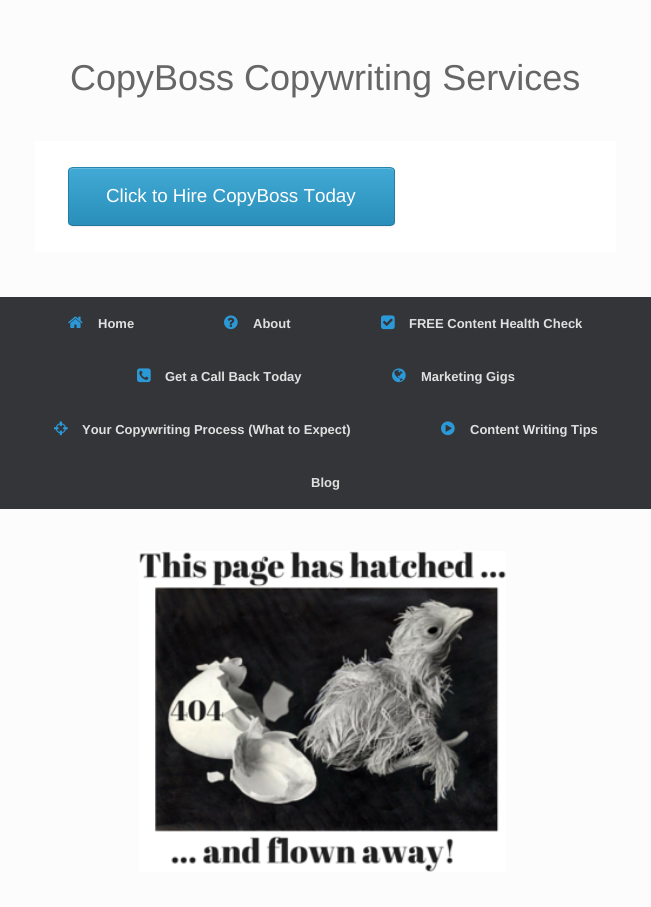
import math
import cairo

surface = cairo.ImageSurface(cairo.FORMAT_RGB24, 651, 907)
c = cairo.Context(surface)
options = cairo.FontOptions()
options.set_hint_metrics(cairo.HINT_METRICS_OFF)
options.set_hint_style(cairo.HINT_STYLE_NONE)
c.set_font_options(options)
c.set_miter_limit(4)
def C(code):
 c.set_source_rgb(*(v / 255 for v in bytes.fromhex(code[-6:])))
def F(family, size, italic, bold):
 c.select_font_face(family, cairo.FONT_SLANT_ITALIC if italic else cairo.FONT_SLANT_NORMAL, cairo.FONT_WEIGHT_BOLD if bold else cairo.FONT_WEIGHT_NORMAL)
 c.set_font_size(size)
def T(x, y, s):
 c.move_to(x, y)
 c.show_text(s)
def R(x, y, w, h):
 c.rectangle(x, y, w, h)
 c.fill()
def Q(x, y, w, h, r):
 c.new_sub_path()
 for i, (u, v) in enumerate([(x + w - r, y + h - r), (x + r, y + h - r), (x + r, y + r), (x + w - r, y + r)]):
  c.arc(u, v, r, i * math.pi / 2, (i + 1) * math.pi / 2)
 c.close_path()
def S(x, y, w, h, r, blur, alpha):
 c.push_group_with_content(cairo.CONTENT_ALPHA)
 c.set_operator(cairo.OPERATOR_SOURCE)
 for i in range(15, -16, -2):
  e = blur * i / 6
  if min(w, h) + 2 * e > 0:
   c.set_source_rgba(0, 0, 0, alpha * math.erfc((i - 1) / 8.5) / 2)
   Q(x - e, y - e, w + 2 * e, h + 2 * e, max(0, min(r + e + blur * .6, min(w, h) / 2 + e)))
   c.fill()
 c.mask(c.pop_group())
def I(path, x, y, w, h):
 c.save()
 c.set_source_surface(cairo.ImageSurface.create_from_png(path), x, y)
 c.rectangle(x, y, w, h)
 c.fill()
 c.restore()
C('fcfcfc')
c.paint()
F('Liberation Sans',36,0,0)
C('666666')
T(70,90,'CopyBoss Copywriting Services')
C('ffffff')
R(35,141,581,111)
C('000000')
S(68,168,327,59,5,1,.07)
c.save()
Q(68,167,327,59,5)
c.clip()
gradient = cairo.LinearGradient(69,225,69,168)
gradient.add_color_stop_rgba(0,0.161,0.561,0.729,1)
gradient.add_color_stop_rgba(1,0.255,0.663,0.835,1)
c.set_source(gradient)
R(68,168,327,57)
c.restore()
C('67badd')
c.new_path()
c.move_to(73,169)
c.line_to(390,169)
c.curve_to(392,169,394,171,394,173)
c.line_to(394,172)
c.curve_to(394,170,392,168,390,168)
c.line_to(73,168)
c.curve_to(71,168,69,170,69,172)
c.line_to(69,173)
c.curve_to(69,171,71,169,73,169)
c.close_path()
c.fill()
c.new_path()
c.move_to(69.5,168.5)
c.line_to(72.5,167.5)
c.line_to(390.5,167.5)
c.line_to(393.5,168.5)
C('2685ad')
c.set_line_width(1)
c.stroke()
c.new_path()
c.move_to(393.5,168.5)
c.curve_to(394,169.5,394.5,170.5,394.5,171.5)
c.line_to(394.5,221.5)
c.curve_to(394.5,222.5,394,223.5,393.5,224.5)
C('247fa5')
c.stroke()
c.new_path()
c.move_to(393.5,224.5)
c.line_to(390.5,225.5)
c.line_to(72.5,225.5)
c.line_to(69.5,224.5)
C('227598')
c.stroke()
c.new_path()
c.move_to(69.5,224.5)
c.curve_to(69,223.5,68.5,222.5,68.5,221.5)
c.line_to(68.5,171.5)
c.curve_to(68.5,170.5,69,169.5,69.5,168.5)
C('247fa5')
c.stroke()
F('Liberation Sans',18.8,0,0)
C('ffffff')
T(106,202,'Click to Hire CopyBoss Today')
C('343538')
R(0,297,651,212)
I('1.png',68,316,15,12)
F('Liberation Sans',13,0,1)
C('e0e0e0')
T(98,328,'Home')
I('2.png',224,315,14,15)
T(253,328,'About')
I('3.png',381,315,14,15)
T(409,328,'FREE Content Health Check')
I('4.png',137,368,14,15)
T(165,381,'Get a Call Back Today')
I('5.png',392,368,14,15)
T(421,381,'Marketing Gigs')
I('6.png',54,421,14,15)
T(82,434,'Your Copywriting Process (What to Expect)')
I('7.png',441,421,14,15)
T(470,434,'Content Writing Tips')
T(311,487,'Blog')
I('8.png',139,551,367,321)
surface.write_to_png('o.png')
